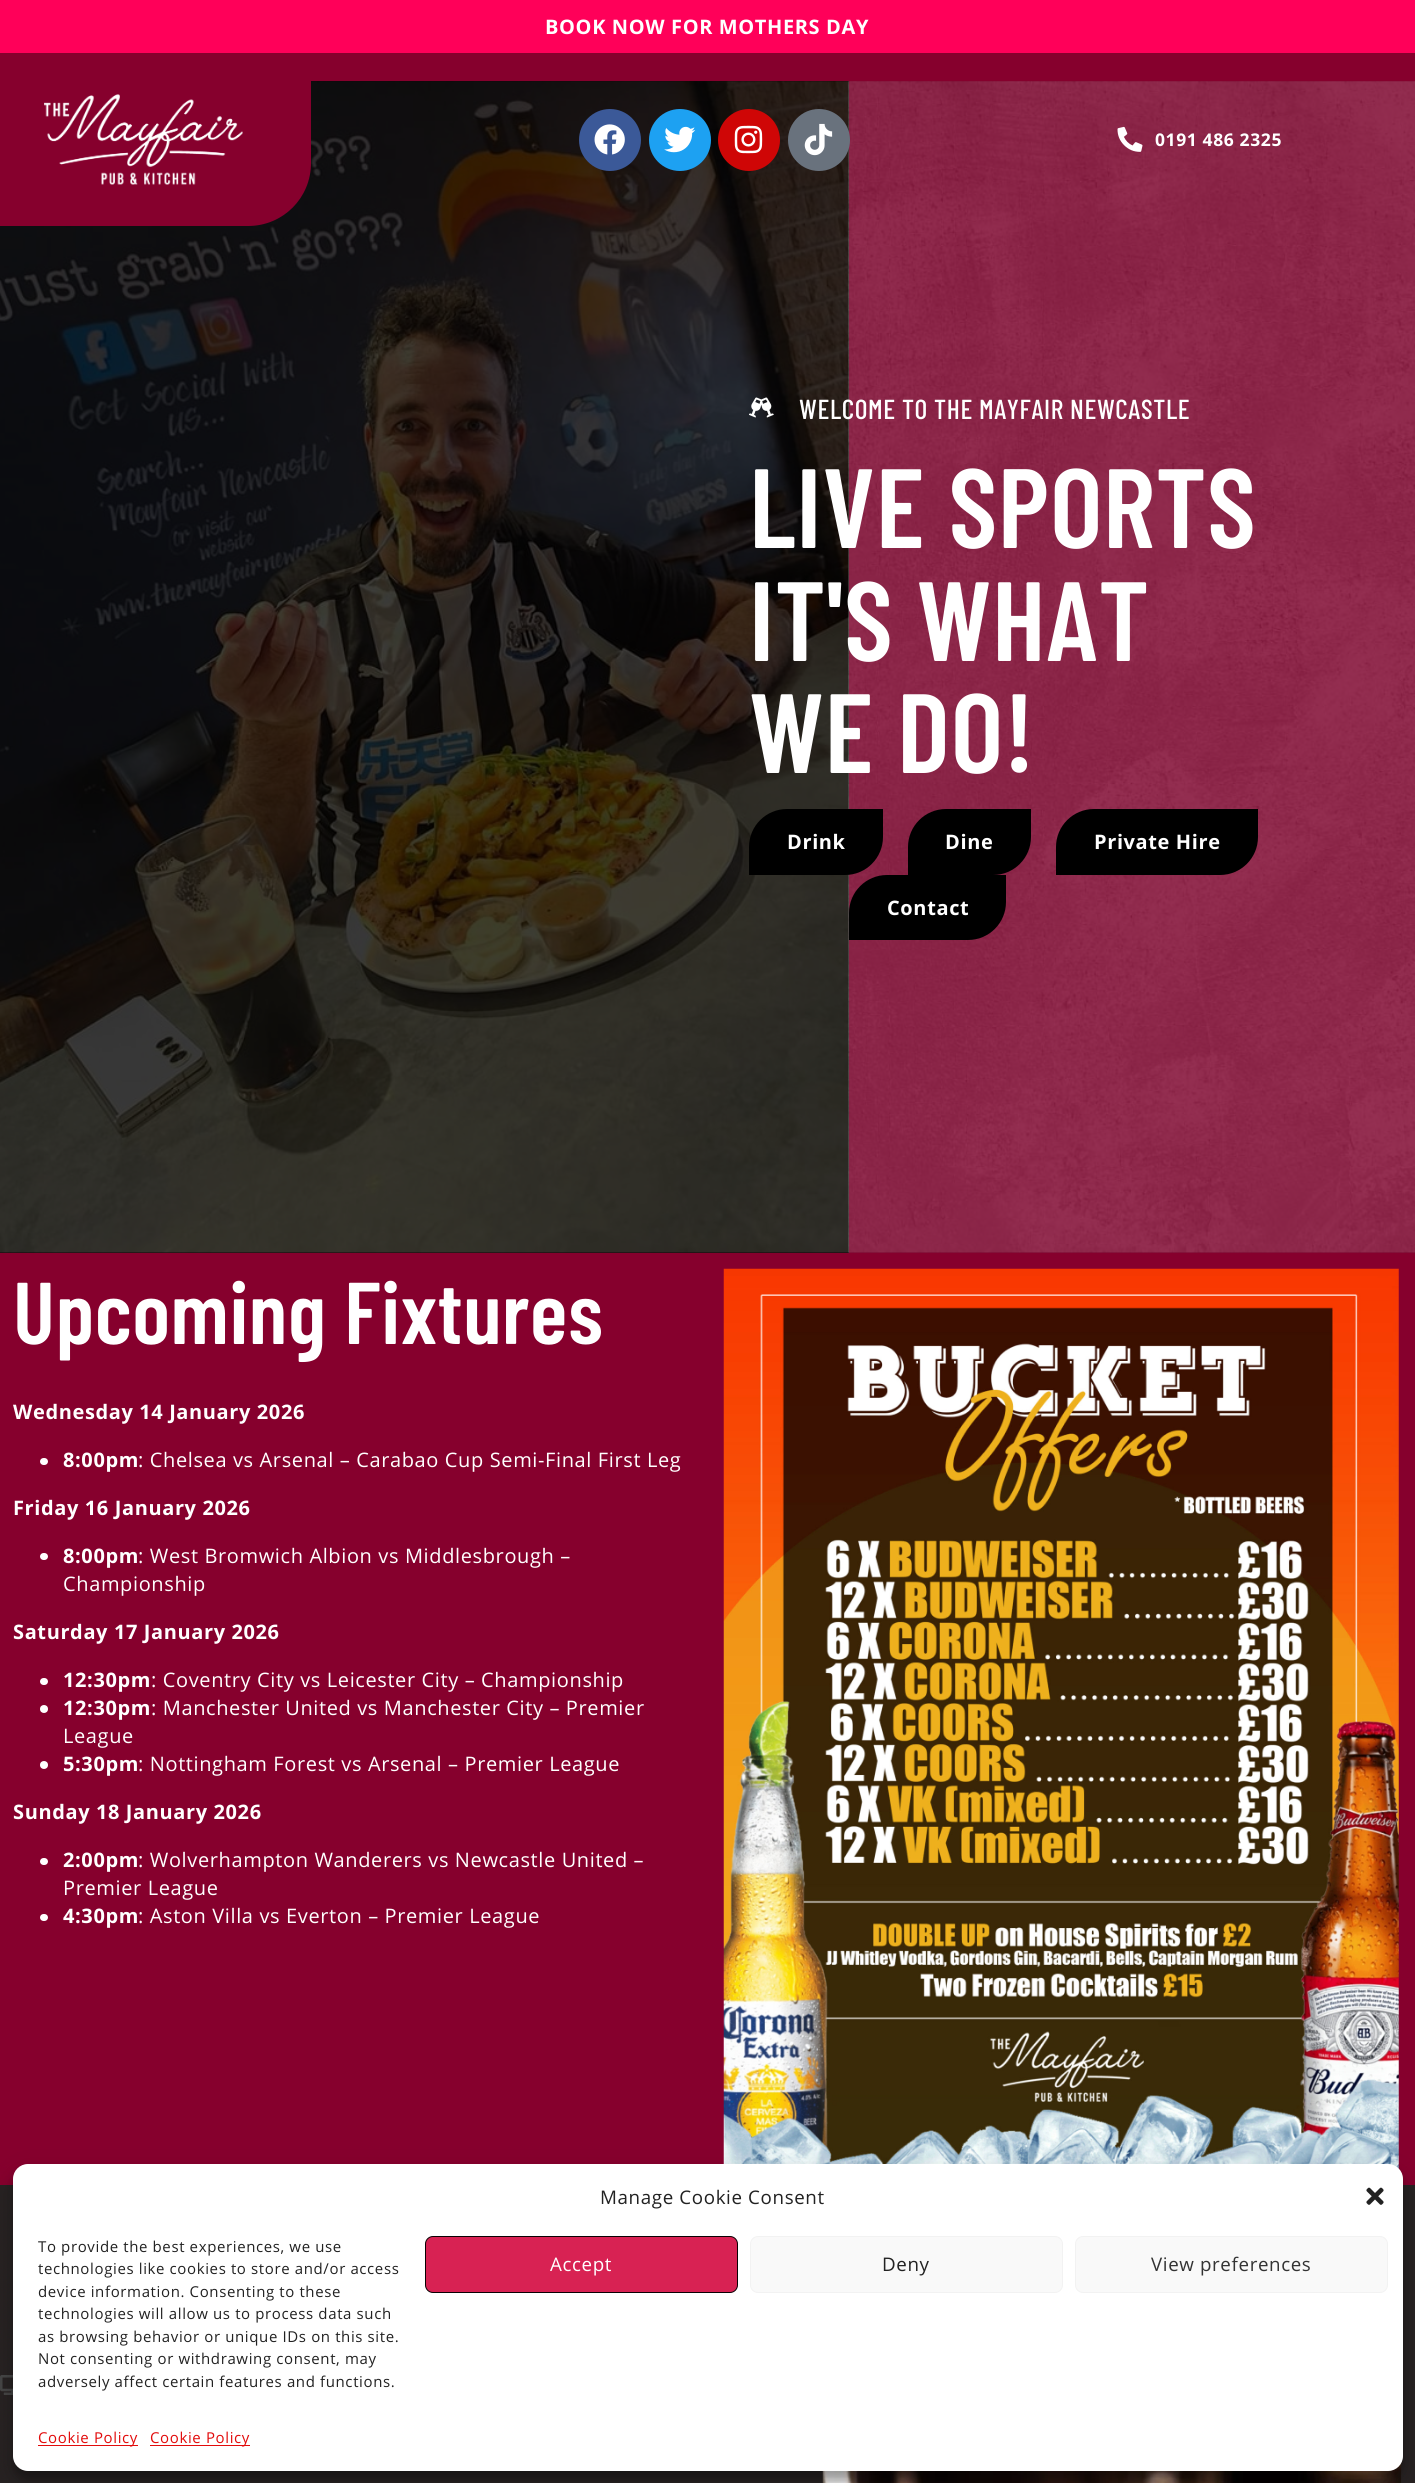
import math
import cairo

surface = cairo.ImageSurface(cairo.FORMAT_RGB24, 1415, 2483)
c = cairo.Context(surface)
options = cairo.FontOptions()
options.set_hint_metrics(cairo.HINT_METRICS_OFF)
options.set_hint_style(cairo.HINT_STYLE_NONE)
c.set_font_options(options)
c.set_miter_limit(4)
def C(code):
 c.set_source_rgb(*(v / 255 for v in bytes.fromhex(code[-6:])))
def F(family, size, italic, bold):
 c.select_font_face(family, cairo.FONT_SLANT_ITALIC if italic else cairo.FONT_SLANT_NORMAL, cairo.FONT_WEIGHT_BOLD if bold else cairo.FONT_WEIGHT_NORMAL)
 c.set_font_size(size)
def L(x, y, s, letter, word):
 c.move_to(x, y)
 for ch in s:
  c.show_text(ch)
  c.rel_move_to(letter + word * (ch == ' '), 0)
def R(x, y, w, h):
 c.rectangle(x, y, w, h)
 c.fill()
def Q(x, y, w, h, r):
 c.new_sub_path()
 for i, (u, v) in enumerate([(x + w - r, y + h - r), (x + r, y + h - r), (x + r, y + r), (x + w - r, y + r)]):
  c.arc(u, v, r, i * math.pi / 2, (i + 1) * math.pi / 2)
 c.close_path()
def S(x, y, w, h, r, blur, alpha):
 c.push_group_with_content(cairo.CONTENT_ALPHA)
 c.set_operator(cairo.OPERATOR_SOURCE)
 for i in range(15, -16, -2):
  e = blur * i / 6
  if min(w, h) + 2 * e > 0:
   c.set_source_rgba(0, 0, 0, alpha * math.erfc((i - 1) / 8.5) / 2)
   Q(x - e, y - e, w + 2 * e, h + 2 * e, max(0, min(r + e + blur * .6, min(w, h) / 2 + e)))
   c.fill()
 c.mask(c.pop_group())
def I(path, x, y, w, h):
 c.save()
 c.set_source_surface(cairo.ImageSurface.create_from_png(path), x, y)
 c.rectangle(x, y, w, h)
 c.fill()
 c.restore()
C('86002d')
c.paint()
C('ff0059')
R(0,0,1415,53)
F('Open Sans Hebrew',20,0,1)
C('ffffff')
L(545,34,'BOOK NOW FOR MOTHERS DAY',.62,0)
C('650022')
R(0,81,849,1172)
I('7.png',0,81,849,1172)
gradient = cairo.LinearGradient(414,1260,435,74)
gradient.add_color_stop_rgba(0,0,0,0,0)
gradient.add_color_stop_rgba(0,0,0,0,.76)
c.set_source(gradient)
R(0,81,849,1172)
C('86002d')
c.new_path()
c.move_to(0,53)
c.line_to(311,53)
c.line_to(311,163)
c.curve_to(311,198,283,226,248,226)
c.line_to(0,226)
c.close_path()
c.fill()
I('1.png',44,94,199,91)
C('3b5998')
c.arc(610,140,31,0,2 * math.pi)
c.fill()
I('2.png',594,124,31,31)
C('1da1f2')
c.arc(680,140,31,0,2 * math.pi)
c.fill()
I('3.png',664,126,32,27)
C('cf0606')
c.arc(749,140,31,0,2 * math.pi)
c.fill()
I('4.png',734,125,29,29)
C('7b032c')
R(849,81,566,1172)
I('8.png',848,81,567,1172)
C('69727d')
c.arc(819,140,31,0,2 * math.pi)
c.fill()
I('5.png',804,123,29,33)
I('6.png',1117,126,26,26)
F('Open Sans Hebrew',17.5,0,1)
C('ffffff')
L(1155,146,'0191 486 2325',.62,0)
I('9.png',749,397,25,21)
F('Barlow Condensed Medium',27.5,0,0)
L(799,419,'WELCOME TO THE MAYFAIR NEWCASTLE',.62,0)
F('Barlow Condensed SemiBold',112.5,0,0)
L(749,548,'LIVE SPORTS',.62,0)
L(749,661,'IT\'S WHAT',.62,0)
L(749,773,'WE DO!',.62,0)
C('000000')
c.new_path()
c.move_to(787,809)
c.line_to(883,809)
c.line_to(883,837)
c.curve_to(883,858,866,875,845,875)
c.line_to(749,875)
c.line_to(749,847)
c.curve_to(749,826,766,809,787,809)
c.close_path()
c.fill()
F('Open Sans Hebrew',20,0,1)
C('ffffff')
L(787,849,'Drink',.62,0)
C('000000')
c.new_path()
c.move_to(946,809)
c.line_to(1031,809)
c.line_to(1031,837)
c.curve_to(1031,858,1014,875,993,875)
c.line_to(908,875)
c.line_to(908,847)
c.curve_to(908,826,925,809,946,809)
c.close_path()
c.fill()
C('ffffff')
L(945,849,'Dine',.62,0)
C('000000')
c.new_path()
c.move_to(1094,809)
c.line_to(1258,809)
c.line_to(1258,837)
c.curve_to(1258,858,1241,875,1220,875)
c.line_to(1056,875)
c.line_to(1056,847)
c.curve_to(1056,826,1073,809,1094,809)
c.close_path()
c.fill()
C('ffffff')
L(1094,849,'Private Hire',.62,0)
C('000000')
c.new_path()
c.move_to(887,875)
c.line_to(1006,875)
c.line_to(1006,902)
c.curve_to(1006,923,989,940,968,940)
c.line_to(849,940)
c.line_to(849,913)
c.curve_to(849,892,866,875,887,875)
c.close_path()
c.fill()
C('ffffff')
L(887,915,'Contact',.62,0)
F('Barlow Condensed SemiBold',87.5,0,0)
L(13,1344,'Upcoming Fixtures',.62,0)
F('Open Sans Hebrew',20,0,1)
L(13,1419,'Wednesday 14 January 2026',.62,0)
Q(40,1458,8,7,3.5)
c.fill()
L(63,1467,'8:00pm',.62,0)
F('Open Sans Hebrew',20,0,0)
L(138,1467,': Chelsea vs Arsenal – Carabao Cup Semi-Final First Leg',.62,0)
F('Open Sans Hebrew',20,0,1)
L(13,1515,'Friday 16 January 2026',.62,0)
Q(40,1553,8,7,3.5)
c.fill()
L(63,1563,'8:00pm',.62,0)
F('Open Sans Hebrew',20,0,0)
L(138,1563,': West Bromwich Albion vs Middlesbrough –',.62,0)
L(63,1591,'Championship',.62,0)
F('Open Sans Hebrew',20,0,1)
L(13,1639,'Saturday 17 January 2026',.62,0)
Q(40,1678,8,7,3.5)
c.fill()
L(63,1687,'12:30pm',.62,0)
F('Open Sans Hebrew',20,0,0)
L(151,1687,': Coventry City vs Leicester City – Championship',.62,0)
c.new_path()
c.arc(44,1709,4,0,2 * math.pi)
c.fill()
F('Open Sans Hebrew',20,0,1)
L(63,1715,'12:30pm',.62,0)
F('Open Sans Hebrew',20,0,0)
L(151,1715,': Manchester United vs Manchester City – Premier',.62,0)
L(63,1743,'League',.62,0)
c.new_path()
c.arc(44,1765,4,0,2 * math.pi)
c.fill()
F('Open Sans Hebrew',20,0,1)
L(63,1771,'5:30pm',.62,0)
F('Open Sans Hebrew',20,0,0)
L(138,1771,': Nottingham Forest vs Arsenal – Premier League',.62,0)
F('Open Sans Hebrew',20,0,1)
L(13,1819,'Sunday 18 January 2026',.62,0)
Q(40,1858,8,7,3.5)
c.fill()
L(63,1867,'2:00pm',.62,0)
F('Open Sans Hebrew',20,0,0)
L(138,1867,': Wolverhampton Wanderers vs Newcastle United –',.62,0)
L(63,1895,'Premier League',.62,0)
Q(40,1914,8,7,3.5)
c.fill()
F('Open Sans Hebrew',20,0,1)
L(63,1923,'4:30pm',.62,0)
F('Open Sans Hebrew',20,0,0)
L(138,1923,': Aston Villa vs Everton – Premier League',.62,0)
I('10.png',723,1268,676,901)
C('272222')
R(0,2185,1415,298)
I('11.png',0,2375,13,20)
I('12.png',822,2461,580,22)
C('000000')
S(13,2171,1390,308,15,4,.23)
S(13,2176,1390,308,15,12.5,.19)
C('ffffff')
Q(13,2164,1390,307,15)
c.fill()
F('Open Sans Hebrew',18.75,0,0)
C('222222')
L(600,2204,'Manage Cookie Consent',.62,0)
I('13.png',1366,2187,18,18)
F('Open Sans Hebrew',15,0,0)
L(38,2252,'To provide the best experiences, we use',.62,0)
L(38,2274,'technologies like cookies to store and/or access',.62,0)
L(38,2297,'device information. Consenting to these',.62,0)
L(38,2319,'technologies will allow us to process data such',.62,0)
L(38,2342,'as browsing behavior or unique IDs on this site.',.62,0)
L(38,2364,'Not consenting or withdrawing consent, may',.62,0)
L(38,2387,'adversely affect certain features and functions.',.62,0)
C('d82253')
Q(425.5,2236.5,312,56,7.5)
c.fill_preserve()
C('0a0103')
c.set_line_width(1)
c.stroke()
F('Open Sans Hebrew',18.75,0,0)
C('ffffff')
L(550,2271,'Accept',.62,0)
C('f9f9f9')
Q(750.5,2236.5,312,56,7.5)
c.fill_preserve()
C('f2f2f2')
c.stroke()
C('222222')
L(882,2271,'Deny',.62,0)
C('f9f9f9')
Q(1075.5,2236.5,312,56,7.5)
c.fill_preserve()
C('f2f2f2')
c.stroke()
C('333333')
L(1151,2271,'View preferences',.62,0)
C('e20b0b')
R(38,2445,100,1)
F('Open Sans Hebrew',15,0,0)
L(38,2443,'Cookie Policy',.62,0)
R(150,2445,100,1)
L(150,2443,'Cookie Policy',.62,0)
surface.write_to_png('o.png')
